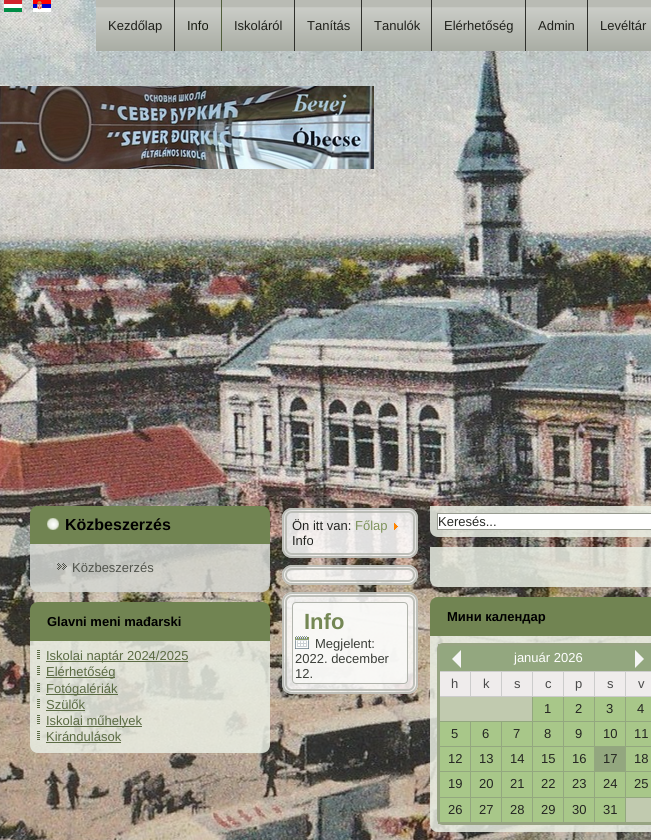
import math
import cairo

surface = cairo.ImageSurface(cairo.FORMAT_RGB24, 651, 840)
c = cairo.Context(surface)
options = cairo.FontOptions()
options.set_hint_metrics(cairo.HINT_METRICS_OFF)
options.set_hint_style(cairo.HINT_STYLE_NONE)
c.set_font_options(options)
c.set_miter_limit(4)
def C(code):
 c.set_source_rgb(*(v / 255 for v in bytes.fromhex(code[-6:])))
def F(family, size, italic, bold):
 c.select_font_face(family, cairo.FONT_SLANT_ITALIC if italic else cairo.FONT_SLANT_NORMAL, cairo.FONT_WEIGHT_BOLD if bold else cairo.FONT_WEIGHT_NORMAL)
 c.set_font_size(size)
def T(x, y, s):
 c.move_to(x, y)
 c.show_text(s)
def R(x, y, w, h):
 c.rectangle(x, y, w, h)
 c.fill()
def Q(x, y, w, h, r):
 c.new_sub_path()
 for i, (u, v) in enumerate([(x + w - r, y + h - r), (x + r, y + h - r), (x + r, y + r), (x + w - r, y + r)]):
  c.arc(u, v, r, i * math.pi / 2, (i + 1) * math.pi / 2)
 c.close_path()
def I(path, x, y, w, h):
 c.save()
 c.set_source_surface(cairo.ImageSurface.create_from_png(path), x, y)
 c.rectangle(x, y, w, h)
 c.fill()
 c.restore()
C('ffffff')
c.paint()
I('1.png',0,0,651,840)
I('2.png',4,0,18,12)
I('3.png',33,0,18,12)
gradient = cairo.LinearGradient(136,0,136,51)
gradient.add_color_stop_rgba(0,0.725,0.733,0.706,1)
gradient.add_color_stop_rgba(.14,0.725,0.733,0.706,1)
gradient.add_color_stop_rgba(.15,0.792,0.8,0.78,1)
gradient.add_color_stop_rgba(1,0.663,0.678,0.643,1)
c.set_source(gradient)
R(96,0,78,51)
C('2f302c')
R(174,0,1,51)
F('Liberation Sans',13,0,0)
C('20211c')
T(108,30,'Kezdőlap')
gradient = cairo.LinearGradient(199,0,199,51)
gradient.add_color_stop_rgba(0,0.725,0.733,0.706,1)
gradient.add_color_stop_rgba(.14,0.725,0.733,0.706,1)
gradient.add_color_stop_rgba(.15,0.792,0.8,0.78,1)
gradient.add_color_stop_rgba(1,0.663,0.678,0.643,1)
c.set_source(gradient)
R(175,0,46,51)
C('515e3b')
R(221,0,1,51)
C('181c12')
T(187,30,'Info')
gradient = cairo.LinearGradient(259,0,259,51)
gradient.add_color_stop_rgba(0,0.725,0.733,0.706,1)
gradient.add_color_stop_rgba(.14,0.725,0.733,0.706,1)
gradient.add_color_stop_rgba(.15,0.792,0.8,0.78,1)
gradient.add_color_stop_rgba(1,0.663,0.678,0.643,1)
c.set_source(gradient)
R(222,0,72,51)
C('2f302c')
R(294,0,1,51)
C('20211c')
T(234,30,'Iskoláról')
gradient = cairo.LinearGradient(329,0,329,51)
gradient.add_color_stop_rgba(0,0.725,0.733,0.706,1)
gradient.add_color_stop_rgba(.14,0.725,0.733,0.706,1)
gradient.add_color_stop_rgba(.15,0.792,0.8,0.78,1)
gradient.add_color_stop_rgba(1,0.663,0.678,0.643,1)
c.set_source(gradient)
R(295,0,66,51)
C('2f302c')
R(361,0,1,51)
C('20211c')
T(307,30,'Tanítás')
gradient = cairo.LinearGradient(397,0,397,51)
gradient.add_color_stop_rgba(0,0.725,0.733,0.706,1)
gradient.add_color_stop_rgba(.14,0.725,0.733,0.706,1)
gradient.add_color_stop_rgba(.15,0.792,0.8,0.78,1)
gradient.add_color_stop_rgba(1,0.663,0.678,0.643,1)
c.set_source(gradient)
R(362,0,69,51)
C('2f302c')
R(431,0,1,51)
C('20211c')
T(374,30,'Tanulók')
gradient = cairo.LinearGradient(479,0,479,51)
gradient.add_color_stop_rgba(0,0.725,0.733,0.706,1)
gradient.add_color_stop_rgba(.14,0.725,0.733,0.706,1)
gradient.add_color_stop_rgba(.15,0.792,0.8,0.78,1)
gradient.add_color_stop_rgba(1,0.663,0.678,0.643,1)
c.set_source(gradient)
R(432,0,93,51)
C('2f302c')
R(525,0,1,51)
C('20211c')
T(444,30,'Elérhetőség')
gradient = cairo.LinearGradient(557,0,557,51)
gradient.add_color_stop_rgba(0,0.725,0.733,0.706,1)
gradient.add_color_stop_rgba(.14,0.725,0.733,0.706,1)
gradient.add_color_stop_rgba(.15,0.792,0.8,0.78,1)
gradient.add_color_stop_rgba(1,0.663,0.678,0.643,1)
c.set_source(gradient)
R(526,0,61,51)
C('2f302c')
R(587,0,1,51)
C('20211c')
T(538,30,'Admin')
gradient = cairo.LinearGradient(624,0,624,51)
gradient.add_color_stop_rgba(0,0.725,0.733,0.706,1)
gradient.add_color_stop_rgba(.14,0.725,0.733,0.706,1)
gradient.add_color_stop_rgba(.15,0.792,0.8,0.78,1)
gradient.add_color_stop_rgba(1,0.663,0.678,0.643,1)
c.set_source(gradient)
R(588,0,63,51)
C('20211c')
T(600,30,'Levéltár')
I('4.png',0,86,374,83)
C('718452')
c.new_path()
c.move_to(38,506)
c.line_to(262,506)
c.curve_to(266.5,506,270,509.5,270,514)
c.line_to(270,544)
c.line_to(30,544)
c.line_to(30,514)
c.curve_to(30,509.5,33.5,506,38,506)
c.close_path()
c.fill()
I('5.png',47,518,12,12)
F('Liberation Sans',16,0,1)
C('000000')
T(65,530,'Közbeszerzés')
c.set_source_rgba(0.831,0.839,0.82,0.85)
c.new_path()
c.move_to(30,544)
c.line_to(270,544)
c.line_to(270,584)
c.curve_to(270,588.5,266.5,592,262,592)
c.line_to(38,592)
c.curve_to(33.5,592,30,588.5,30,584)
c.close_path()
c.fill()
I('6.png',57,563,10,7)
F('Liberation Sans',13,0,0)
C('50534b')
T(72,572,'Közbeszerzés')
C('718452')
c.new_path()
c.move_to(38,602)
c.line_to(262,602)
c.curve_to(266.5,602,270,605.5,270,610)
c.line_to(270,641)
c.line_to(30,641)
c.line_to(30,610)
c.curve_to(30,605.5,33.5,602,38,602)
c.close_path()
c.fill()
F('Liberation Sans',13,0,1)
C('000000')
T(47,626,'Glavni meni mađarski')
c.set_source_rgba(0.914,0.929,0.89,0.85)
c.new_path()
c.move_to(30,641)
c.line_to(270,641)
c.line_to(270,745)
c.curve_to(270,749.5,266.5,753,262,753)
c.line_to(38,753)
c.curve_to(33.5,753,30,749.5,30,745)
c.close_path()
c.fill()
I('7.png',37,650,3,9)
C('5b6b43')
R(46,661,142,1)
F('Liberation Sans',13,0,0)
T(46,660,'Iskolai naptár 2024/2025')
I('8.png',37,666,3,9)
R(46,677,69,1)
T(46,676,'Elérhetőség')
I('9.png',37,683,3,9)
R(46,694,72,1)
T(46,693,'Fotógalériák')
I('10.png',37,699,3,9)
T(46,709,'Szülők')
R(46,710,39,1)
I('11.png',37,715,3,9)
R(46,726,96,1)
T(46,725,'Iskolai műhelyek')
I('12.png',37,731,3,9)
T(46,741,'Kirándulások')
R(46,742,75,1)
c.set_source_rgba(1,1,1,0.85)
Q(282,508,136,50,10)
c.fill()
Q(283,509,134,48,9)
c.set_source_rgba(0.694,0.706,0.675,0.8)
c.stroke()
Q(286,512,128,42,6)
c.stroke()
C('242522')
T(292,530,'Ön itt van:')
C('7e935c')
T(355,530,'Főlap')
I('13.png',394,523,4,7)
C('242522')
T(292,545,'Info')
c.set_source_rgba(1,1,1,0.85)
Q(282,565,136,20,10)
c.fill()
Q(283,566,134,18,9)
c.set_source_rgba(0.694,0.706,0.675,0.8)
c.stroke()
Q(286,569,128,12,6)
c.stroke()
c.set_source_rgba(1,1,1,0.85)
Q(282,592,136,102,10)
c.fill()
Q(283,593,134,100,9)
c.set_source_rgba(0.694,0.706,0.675,0.8)
c.stroke()
Q(286,596,128,94,6)
c.stroke()
c.set_source_rgba(0.973,0.976,0.965,0.8)
Q(292.5,602.5,115,81,3.5)
c.fill_preserve()
C('b1b4ac')
c.set_line_width(1)
c.stroke()
F('Liberation Sans',22,0,1)
C('748754')
T(304,629,'Info')
I('14.png',295,636,14,13)
F('Liberation Sans',13,0,0)
C('3b3e38')
T(315,648,'Megjelent:')
T(295,663,'2022. december')
T(295,678,'12.')
c.set_source_rgba(0.914,0.929,0.89,0.85)
c.new_path()
c.move_to(430,506)
c.line_to(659,506)
c.line_to(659,529)
c.curve_to(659,533.5,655.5,537,651,537)
c.line_to(438,537)
c.curve_to(433.5,537,430,533.5,430,529)
c.close_path()
c.fill()
C('ffffff')
c.rectangle(437.5,513.5,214,16)
c.fill_preserve()
C('989c91')
c.stroke()
C('292b27')
T(438,526,'Keresés...')
c.set_source_rgba(0.914,0.929,0.89,0.85)
c.new_path()
c.move_to(430,547)
c.line_to(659,547)
c.line_to(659,579)
c.curve_to(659,583.5,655.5,587,651,587)
c.line_to(438,587)
c.curve_to(433.5,587,430,583.5,430,579)
c.close_path()
c.fill()
C('718452')
c.new_path()
c.move_to(438,597)
c.line_to(651,597)
c.curve_to(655.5,597,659,600.5,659,605)
c.line_to(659,636)
c.line_to(430,636)
c.line_to(430,605)
c.curve_to(430,600.5,433.5,597,438,597)
c.close_path()
c.fill()
F('Liberation Sans',13,0,1)
C('000000')
T(447,621,'Мини календар')
c.set_source_rgba(0.914,0.929,0.89,0.85)
c.new_path()
c.move_to(430,636)
c.line_to(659,636)
c.line_to(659,824)
c.curve_to(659,828.5,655.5,832,651,832)
c.line_to(438,832)
c.curve_to(433.5,832,430,828.5,430,824)
c.close_path()
c.fill()
Q(437.5,643.5,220,181,5.5)
C('97a482')
c.stroke()
C('a8c789')
R(440,697,211,125)
C('97a482')
R(438,644,213,2)
C('93a77f')
R(625,797,26,1)
R(625,797,1,26)
R(594,797,32,1)
R(594,797,1,26)
R(563,797,32,1)
R(563,797,1,26)
R(532,797,32,1)
R(532,797,1,26)
R(501,797,32,1)
R(501,797,1,26)
R(470,797,32,1)
R(470,797,1,26)
C('97a482')
R(438,822,213,2)
C('cccccc')
R(625,671,26,1)
C('93a77f')
R(625,721,26,1)
R(625,746,26,1)
R(625,771,26,1)
R(625,771,1,27)
R(625,746,1,26)
R(563,746,63,1)
R(625,721,1,26)
R(594,721,32,1)
R(625,696,1,26)
C('cccccc')
R(625,696,26,1)
R(625,671,1,26)
R(594,671,32,1)
C('93a77f')
R(594,721,1,26)
R(563,721,32,1)
R(594,696,1,26)
C('cccccc')
R(594,696,32,1)
R(594,671,1,26)
R(563,671,32,1)
C('93a77f')
R(594,747,31,25)
R(594,771,1,27)
R(563,771,32,1)
R(563,771,1,27)
R(532,771,32,1)
R(563,746,1,26)
R(532,746,32,1)
R(563,721,1,26)
R(532,721,32,1)
R(563,696,1,26)
C('cccccc')
R(563,696,32,1)
R(563,671,1,26)
R(532,671,32,1)
C('93a77f')
R(532,771,1,27)
R(501,771,32,1)
R(532,746,1,26)
R(501,746,32,1)
R(532,721,1,26)
R(501,721,32,1)
R(532,696,1,26)
C('cccccc')
R(532,696,32,1)
R(532,671,1,26)
R(501,671,32,1)
R(501,696,32,1)
R(501,671,1,26)
R(470,671,32,1)
R(470,696,32,1)
R(470,671,1,26)
R(439,671,32,1)
R(439,696,32,1)
C('93a77f')
R(501,771,1,27)
R(470,771,32,1)
R(501,746,1,26)
R(470,746,32,1)
R(501,721,1,26)
R(470,721,32,1)
R(439,797,32,1)
R(470,771,1,27)
R(439,771,32,1)
R(470,746,1,26)
R(439,746,32,1)
R(470,721,1,26)
R(439,721,32,1)
C('97a482')
R(438,644,2,180)
C('93a77f')
R(440,646,211,25)
C('f5f5f5')
c.new_path()
c.move_to(461,650)
c.line_to(461,668)
c.line_to(452,659)
c.close_path()
c.fill()
F('Liberation Sans',13,0,0)
C('ffffff')
T(514,662,'január 2026')
C('f5f5f5')
c.new_path()
c.move_to(635,668)
c.line_to(635,650)
c.line_to(644,659)
c.close_path()
c.fill()
C('efecec')
R(440,672,30,24)
C('4a4a4a')
T(451,688,'h')
C('efecec')
R(471,672,30,24)
C('4a4a4a')
T(483,688,'k')
C('efecec')
R(502,672,30,24)
C('4a4a4a')
T(514,688,'s')
C('efecec')
R(533,672,30,24)
C('4a4a4a')
T(545,688,'c')
C('efecec')
R(564,672,30,24)
C('4a4a4a')
T(575,688,'p')
C('efecec')
R(595,672,30,24)
C('4a4a4a')
T(607,688,'s')
C('efecec')
R(626,672,25,24)
C('4a4a4a')
T(638,688,'v')
C('c1caaf')
R(440,697,92,24)
C('242522')
T(544,713,'1')
T(575,713,'2')
T(606,713,'3')
T(637,713,'4')
T(451,738,'5')
T(482,738,'6')
T(513,738,'7')
T(544,738,'8')
T(575,738,'9')
T(603,738,'10')
T(634,738,'11')
T(448,763,'12')
T(479,763,'13')
T(510,763,'14')
T(541,763,'15')
T(572,763,'16')
T(603,763,'17')
T(634,763,'18')
T(448,788,'19')
T(479,788,'20')
T(510,788,'21')
T(541,788,'22')
T(572,788,'23')
T(603,788,'24')
T(634,788,'25')
T(448,814,'26')
T(479,814,'27')
T(510,814,'28')
T(541,814,'29')
T(572,814,'30')
T(603,814,'31')
C('c1caaf')
R(626,798,25,24)
surface.write_to_png('o.png')
